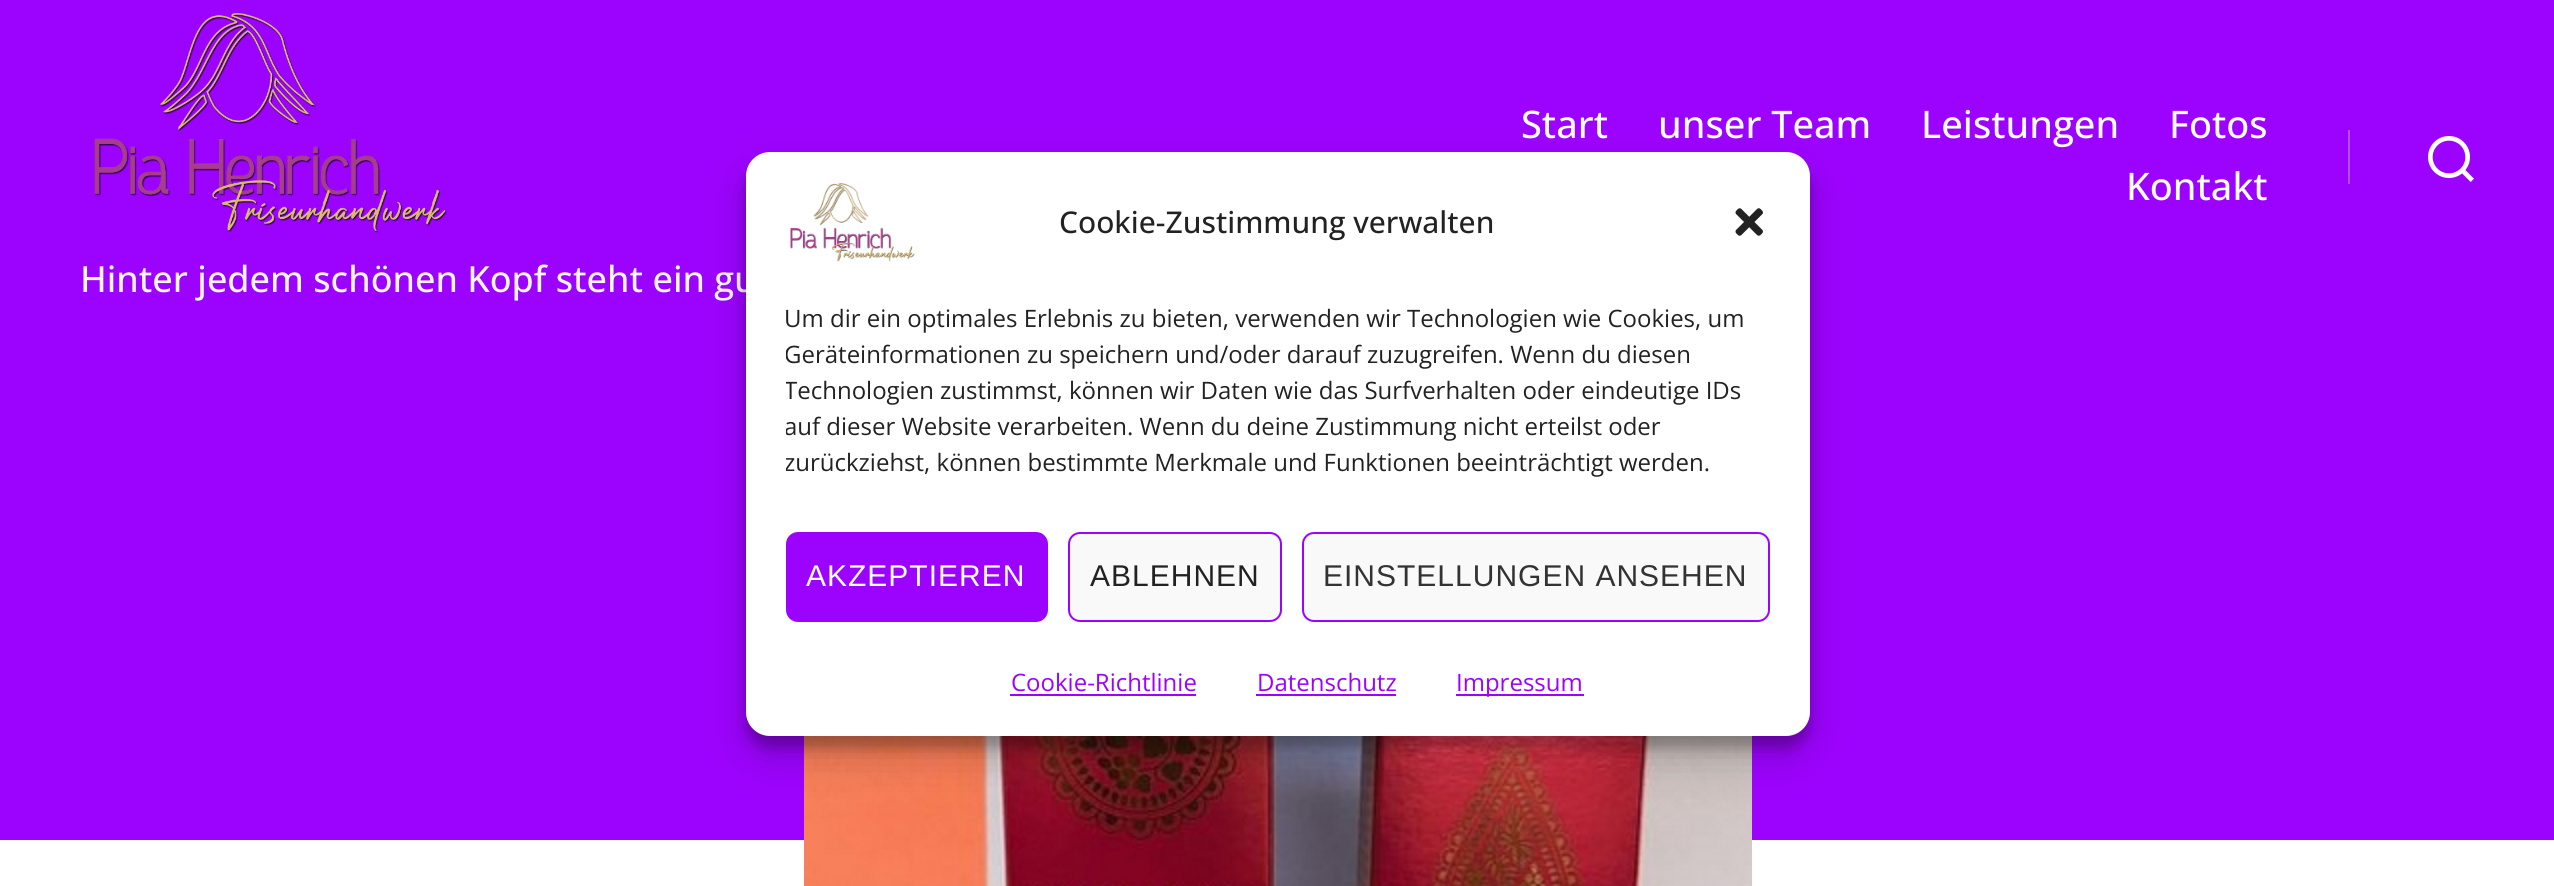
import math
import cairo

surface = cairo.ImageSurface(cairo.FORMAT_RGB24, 2554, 886)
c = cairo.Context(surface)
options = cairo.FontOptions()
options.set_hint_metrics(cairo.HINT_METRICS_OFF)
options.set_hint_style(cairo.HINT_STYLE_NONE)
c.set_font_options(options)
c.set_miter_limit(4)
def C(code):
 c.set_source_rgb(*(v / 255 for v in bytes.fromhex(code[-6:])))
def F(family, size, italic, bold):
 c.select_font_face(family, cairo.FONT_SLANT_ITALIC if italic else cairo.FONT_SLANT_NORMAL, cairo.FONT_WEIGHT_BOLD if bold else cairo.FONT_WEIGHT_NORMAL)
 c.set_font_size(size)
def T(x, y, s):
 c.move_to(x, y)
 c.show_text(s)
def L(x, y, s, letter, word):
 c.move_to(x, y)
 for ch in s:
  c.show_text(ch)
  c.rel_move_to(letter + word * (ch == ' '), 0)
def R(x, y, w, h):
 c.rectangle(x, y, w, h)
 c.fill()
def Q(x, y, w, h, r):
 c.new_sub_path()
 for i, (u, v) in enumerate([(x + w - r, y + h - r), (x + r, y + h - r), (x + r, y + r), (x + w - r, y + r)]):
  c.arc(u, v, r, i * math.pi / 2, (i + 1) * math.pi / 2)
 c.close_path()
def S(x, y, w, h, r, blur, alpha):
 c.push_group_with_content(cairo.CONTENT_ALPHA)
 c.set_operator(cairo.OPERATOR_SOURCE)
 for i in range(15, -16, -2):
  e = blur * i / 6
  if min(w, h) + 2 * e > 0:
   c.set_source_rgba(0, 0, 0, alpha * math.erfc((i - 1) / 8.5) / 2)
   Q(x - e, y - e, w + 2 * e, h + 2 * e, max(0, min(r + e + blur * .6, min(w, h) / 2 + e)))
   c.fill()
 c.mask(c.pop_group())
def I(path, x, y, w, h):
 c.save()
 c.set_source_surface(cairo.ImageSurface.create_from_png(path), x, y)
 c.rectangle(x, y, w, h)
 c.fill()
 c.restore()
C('ffffff')
c.paint()
C('9c03fe')
R(0,0,2554,840)
I('1.png',804,736,948,150)
F('Open Sans Medium',38,0,0)
C('ffffff')
T(1521,138,'Start')
T(1658,138,'unser Team')
T(1921,138,'Leistungen')
T(2169,138,'Fotos')
T(2126,200,'Kontakt')
C('b64ef7')
R(2348,130,2,54)
I('2.png',2428,136,46,46)
I('3.png',94,13,353,220)
F('Open Sans Medium',36,0,0)
C('f9f7fc')
T(80,292,'Hinter jedem schönen Kopf steht ein gu')
C('000000')
S(746,164,1064,584,24,6,.23)
S(746,172,1064,584,24,20,.19)
C('ffffff')
Q(746,152,1064,584,24)
c.fill()
I('4.png',790,182,125,80)
F('Open Sans Medium',30,0,0)
C('222222')
T(1059,233,'Cookie-Zustimmung verwalten')
I('5.png',1735,208,28,28)
F('Open Sans',24,0,0)
T(784,327,'Um dir ein optimales Erlebnis zu bieten, verwenden wir Technologien wie Cookies, um')
c.save()
c.rectangle(786,302,984,190)
c.clip()
T(784,363,'Geräteinformationen zu speichern und/oder darauf zuzugreifen. Wenn du diesen')
T(784,399,'Technologien zustimmst, können wir Daten wie das Surfverhalten oder eindeutige IDs')
T(784,435,'auf dieser Website verarbeiten. Wenn du deine Zustimmung nicht erteilst oder')
T(784,471,'zurückziehst, können bestimmte Merkmale und Funktionen beeinträchtigt werden.')
c.restore()
C('9c03fe')
Q(787,533,260,88,11)
c.fill_preserve()
c.stroke()
F('Liberation Sans',30,0,0)
C('ffffff')
L(806,586,'AKZEPTIEREN',1,0)
C('f9f9f9')
Q(1069,533,212,88,11)
c.fill_preserve()
C('9c03fe')
c.stroke()
C('222222')
L(1090,586,'ABLEHNEN',1,0)
C('f9f9f9')
Q(1303,533,466,88,11)
c.fill_preserve()
C('9c03fe')
c.stroke()
C('333333')
L(1323,586,'EINSTELLUNGEN ANSEHEN',1,0)
F('Open Sans',24,0,0)
C('9c03fe')
T(1011,691,'Cookie-Richtlinie')
R(1010,694,186,2)
T(1257,691,'Datenschutz')
R(1256,694,140,2)
R(1456,694,128,2)
T(1456,691,'Impressum')
surface.write_to_png('o.png')
